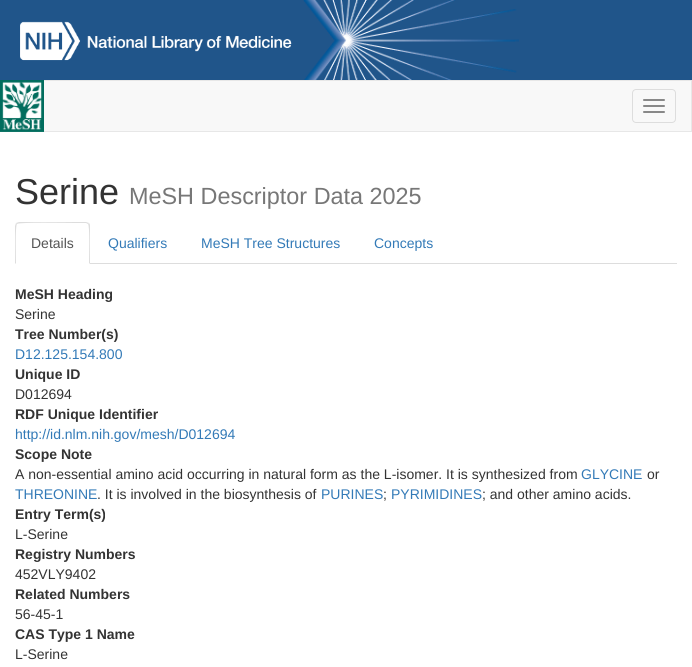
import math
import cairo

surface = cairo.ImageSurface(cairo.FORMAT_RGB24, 692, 667)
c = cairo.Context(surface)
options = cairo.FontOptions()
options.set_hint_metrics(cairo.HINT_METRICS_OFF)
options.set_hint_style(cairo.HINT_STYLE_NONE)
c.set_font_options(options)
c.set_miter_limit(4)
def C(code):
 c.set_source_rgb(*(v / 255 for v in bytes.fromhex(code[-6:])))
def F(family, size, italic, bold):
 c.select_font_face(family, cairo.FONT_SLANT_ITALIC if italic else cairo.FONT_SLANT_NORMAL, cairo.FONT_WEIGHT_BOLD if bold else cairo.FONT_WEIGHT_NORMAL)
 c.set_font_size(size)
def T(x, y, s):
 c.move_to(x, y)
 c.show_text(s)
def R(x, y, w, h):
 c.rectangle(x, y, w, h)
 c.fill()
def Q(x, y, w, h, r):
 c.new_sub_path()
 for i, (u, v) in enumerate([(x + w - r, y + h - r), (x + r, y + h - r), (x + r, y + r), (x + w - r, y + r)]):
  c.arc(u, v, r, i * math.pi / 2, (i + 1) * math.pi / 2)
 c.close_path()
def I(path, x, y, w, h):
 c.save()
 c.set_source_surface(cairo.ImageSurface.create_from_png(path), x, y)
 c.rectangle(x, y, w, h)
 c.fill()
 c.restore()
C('ffffff')
c.paint()
C('20558a')
R(0,0,692,80)
I('1.png',303,0,216,80)
I('2.png',20,21,272,40)
C('f8f8f8')
R(44,81,647,50)
c.rectangle(.5,80.5,691,51)
C('e7e7e7')
c.set_line_width(1)
c.stroke()
I('3.png',0,80,44,52)
Q(632.5,89.5,43,33,3.5)
C('dddddd')
c.stroke()
C('888888')
Q(643,99,22,2,1)
c.fill()
Q(643,105,22,2,1)
c.fill()
Q(643,111,22,2,1)
c.fill()
F('Liberation Sans',36,0,0)
C('333333')
T(15,204,'Serine')
F('Liberation Sans',23.4,0,0)
C('777777')
T(129,204,'MeSH Descriptor Data 2025')
C('dddddd')
R(90,263,587,1)
c.new_path()
c.move_to(19,222)
c.line_to(16,223)
c.line_to(17,224)
c.curve_to(19,222,68,223,75,223)
c.line_to(86,223)
c.line_to(88,224)
c.line_to(89,223)
c.line_to(86,222)
c.close_path()
c.fill()
c.new_path()
c.move_to(90,264)
c.line_to(90,226)
c.curve_to(90,225,90,224,89,223)
c.line_to(88,224)
c.curve_to(90,226,89,258,89,263)
c.close_path()
c.fill()
c.new_path()
c.move_to(15,264)
c.line_to(16,263)
c.curve_to(16,258,15,226,17,224)
c.line_to(16,223)
c.line_to(15,226)
c.close_path()
c.fill()
F('Liberation Sans',14,0,0)
C('555555')
T(31,248,'Details')
C('337ab7')
T(108,248,'Qualifiers')
T(201,248,'MeSH Tree Structures')
T(374,248,'Concepts')
F('Liberation Sans',14,0,1)
C('333333')
T(15,299,'MeSH Heading')
F('Liberation Sans',14,0,0)
T(15,319,'Serine')
F('Liberation Sans',14,0,1)
T(15,339,'Tree Number(s)')
F('Liberation Sans',14,0,0)
C('337ab7')
T(15,359,'D12.125.154.800')
F('Liberation Sans',14,0,1)
C('333333')
T(15,379,'Unique ID')
F('Liberation Sans',14,0,0)
T(15,399,'D012694')
F('Liberation Sans',14,0,1)
T(15,419,'RDF Unique Identifier')
F('Liberation Sans',14,0,0)
C('337ab7')
T(15,439,'http://id.nlm.nih.gov/mesh/D012694')
F('Liberation Sans',14,0,1)
C('333333')
T(15,459,'Scope Note')
F('Liberation Sans',14,0,0)
T(15,479,'A non-essential amino acid occurring in natural form as the L-isomer. It is synthesized from')
C('337ab7')
T(581,479,'GLYCINE')
C('333333')
T(647,479,'or')
C('337ab7')
T(15,499,'THREONINE')
C('333333')
T(97,499,'. It is involved in the biosynthesis of')
C('337ab7')
T(321,499,'PURINES')
C('333333')
T(383,499,';')
C('337ab7')
T(391,499,'PYRIMIDINES')
C('333333')
T(482,499,'; and other amino acids.')
F('Liberation Sans',14,0,1)
T(15,519,'Entry Term(s)')
F('Liberation Sans',14,0,0)
T(15,539,'L-Serine')
F('Liberation Sans',14,0,1)
T(15,559,'Registry Numbers')
F('Liberation Sans',14,0,0)
T(15,579,'452VLY9402')
F('Liberation Sans',14,0,1)
T(15,599,'Related Numbers')
F('Liberation Sans',14,0,0)
T(15,619,'56-45-1')
F('Liberation Sans',14,0,1)
T(15,639,'CAS Type 1 Name')
F('Liberation Sans',14,0,0)
T(15,659,'L-Serine')
surface.write_to_png('o.png')
